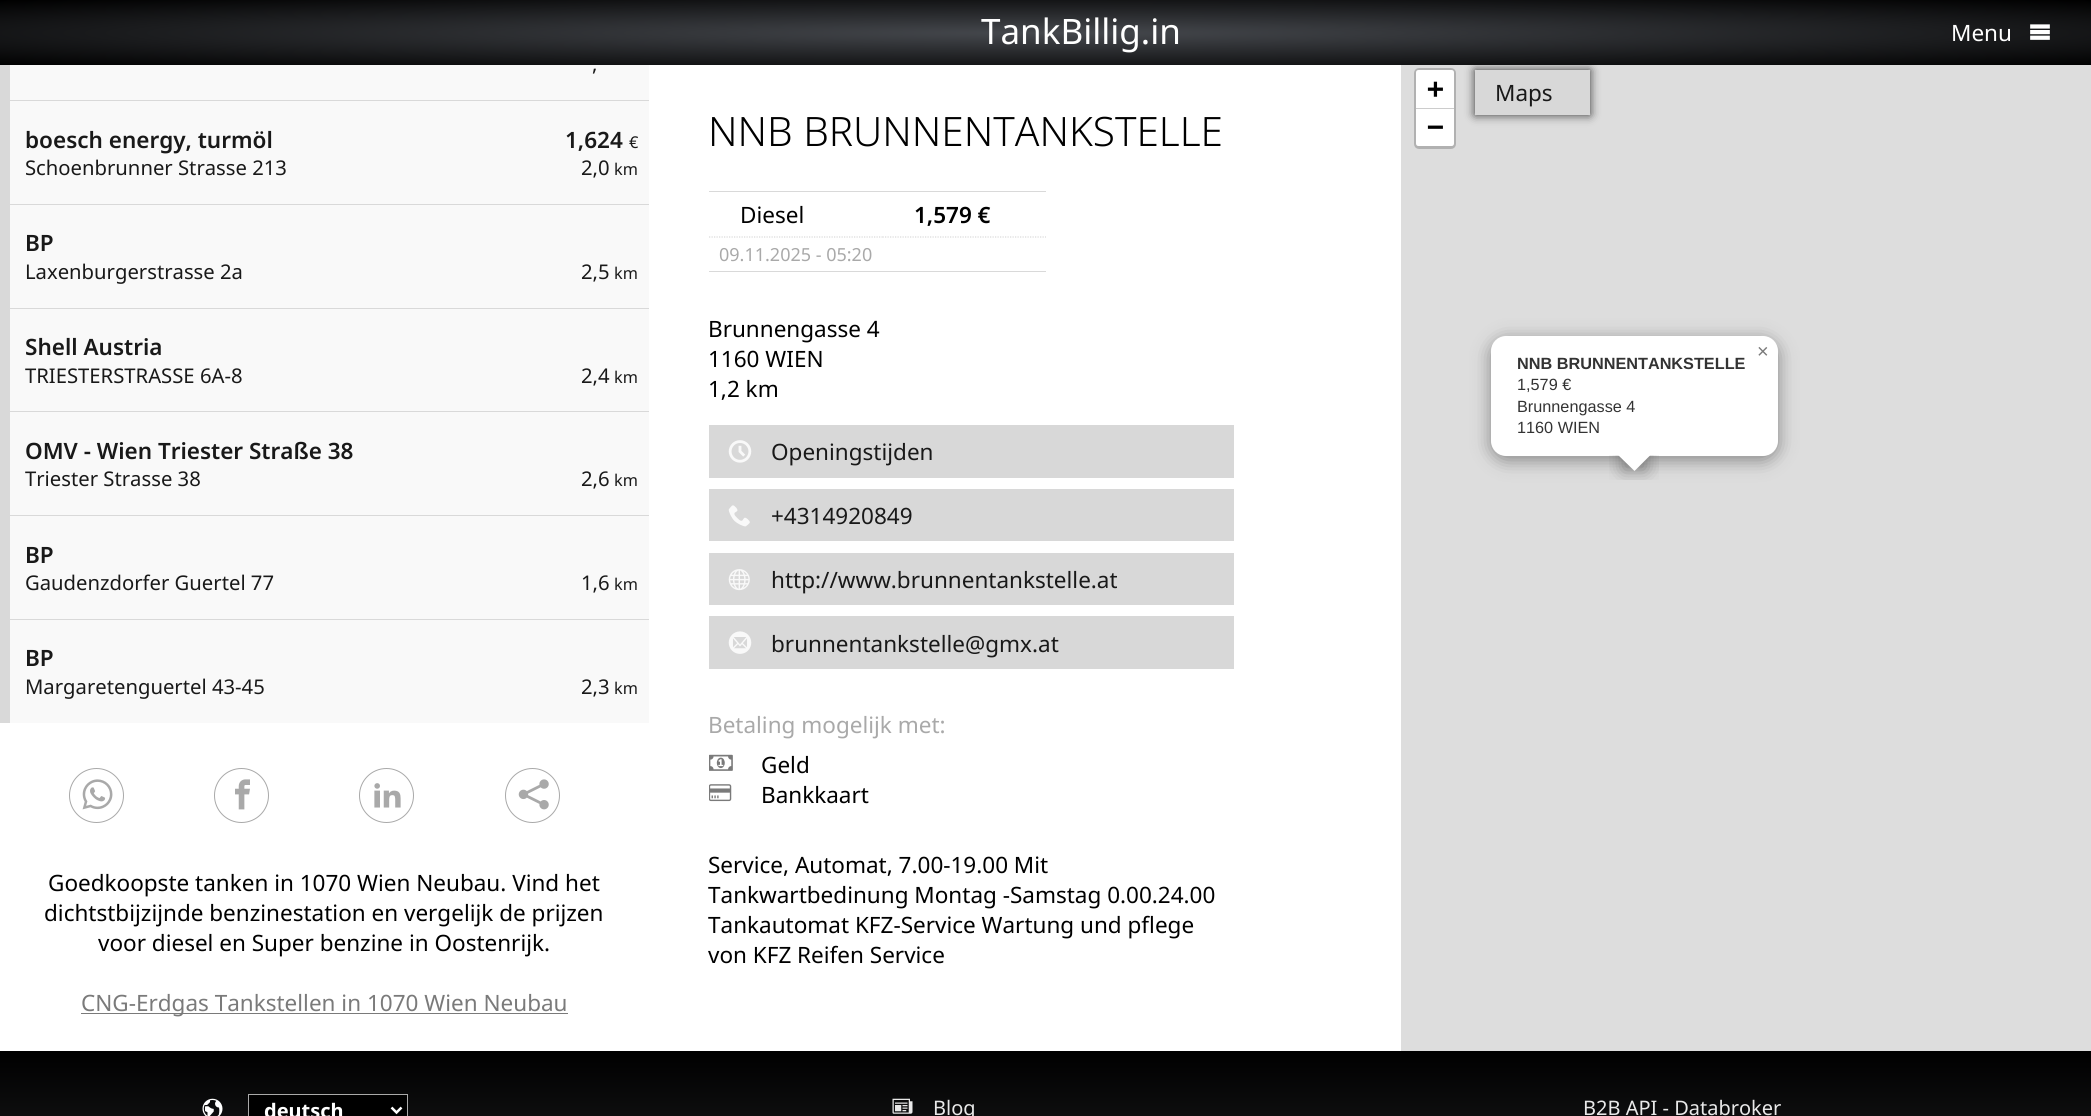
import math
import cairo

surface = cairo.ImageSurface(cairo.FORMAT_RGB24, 2091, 1116)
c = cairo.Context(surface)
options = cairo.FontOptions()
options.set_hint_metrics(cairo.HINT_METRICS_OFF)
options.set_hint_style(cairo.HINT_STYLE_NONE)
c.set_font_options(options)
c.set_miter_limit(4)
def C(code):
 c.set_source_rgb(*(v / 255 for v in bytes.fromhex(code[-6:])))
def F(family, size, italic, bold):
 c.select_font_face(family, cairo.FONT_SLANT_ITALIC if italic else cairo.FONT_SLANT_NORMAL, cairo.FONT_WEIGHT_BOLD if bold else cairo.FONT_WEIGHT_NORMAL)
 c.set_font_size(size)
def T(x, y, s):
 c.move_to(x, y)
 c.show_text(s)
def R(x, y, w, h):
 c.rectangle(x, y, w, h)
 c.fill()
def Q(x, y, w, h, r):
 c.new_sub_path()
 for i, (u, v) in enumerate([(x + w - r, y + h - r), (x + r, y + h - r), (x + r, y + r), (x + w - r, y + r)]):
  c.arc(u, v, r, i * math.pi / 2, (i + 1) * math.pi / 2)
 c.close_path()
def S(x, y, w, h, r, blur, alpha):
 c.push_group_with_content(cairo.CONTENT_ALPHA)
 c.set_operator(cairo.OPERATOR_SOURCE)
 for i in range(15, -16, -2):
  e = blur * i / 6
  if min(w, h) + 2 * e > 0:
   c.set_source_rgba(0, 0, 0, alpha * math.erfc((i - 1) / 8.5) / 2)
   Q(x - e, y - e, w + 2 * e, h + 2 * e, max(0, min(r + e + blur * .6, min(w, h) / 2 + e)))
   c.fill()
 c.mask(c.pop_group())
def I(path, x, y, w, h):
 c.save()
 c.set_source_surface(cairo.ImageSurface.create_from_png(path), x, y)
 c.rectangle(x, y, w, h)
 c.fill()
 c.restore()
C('ffffff')
c.paint()
C('dddddd')
R(1401,65,690,986)
C('000000')
S(1475,70,115,45,0,5,.75)
gradient = cairo.RadialGradient(0,0,0,0,0,1)
gradient.set_matrix(cairo.Matrix(1 / 1479, 0, 0, 1 / 46, -1 * 1046 / 1479, -1 * 33 / 46))
gradient.add_color_stop_rgba(0,0.271,0.282,0.302,1)
gradient.add_color_stop_rgba(1,0,0,0,1)
c.set_source(gradient)
R(0,0,2091,65)
F('Noto Sans',35,0,0)
C('ffffff')
T(981,44,'TankBillig.in')
F('Noto Sans',22.5,0,0)
T(1951,41,'Menu')
I('1.png',2030,24,20,16)
C('f9f9f9')
R(10,65,639,658)
C('d9d9d9')
R(0,65,10,658)
F('Noto Sans',20.25,0,0)
C('191919')
T(592,71,',')
C('d9d9d9')
R(10,100,639,1)
F('Noto Sans SemiBold',22.5,0,0)
C('191919')
T(25,148,'boesch energy, turmöl')
F('Noto Sans',20.25,0,0)
T(25,175,'Schoenbrunner Strasse 213')
F('Noto Sans SemiBold',22.5,0,0)
T(565,148,'1,624')
F('Noto Sans',16.25,0,0)
T(629,148,'€')
F('Noto Sans',20.25,0,0)
T(581,175,'2,0')
F('Noto Sans',16.25,0,0)
T(614,175,'km')
C('d9d9d9')
R(10,204,639,1)
F('Noto Sans SemiBold',22.5,0,0)
C('191919')
T(25,251,'BP')
F('Noto Sans',20.25,0,0)
T(25,279,'Laxenburgerstrasse 2a')
T(581,279,'2,5')
F('Noto Sans',16.25,0,0)
T(614,279,'km')
C('d9d9d9')
R(10,308,639,1)
F('Noto Sans SemiBold',22.5,0,0)
C('191919')
T(25,355,'Shell Austria')
F('Noto Sans',20.25,0,0)
T(25,383,'TRIESTERSTRASSE 6A-8')
T(581,383,'2,4')
F('Noto Sans',16.25,0,0)
T(614,383,'km')
C('d9d9d9')
R(10,411,639,1)
F('Noto Sans SemiBold',22.5,0,0)
C('191919')
T(25,459,'OMV - Wien Triester Straße 38')
F('Noto Sans',20.25,0,0)
T(25,486,'Triester Strasse 38')
T(581,486,'2,6')
F('Noto Sans',16.25,0,0)
T(614,486,'km')
C('d9d9d9')
R(10,515,639,1)
F('Noto Sans SemiBold',22.5,0,0)
C('191919')
T(25,563,'BP')
F('Noto Sans',20.25,0,0)
T(25,590,'Gaudenzdorfer Guertel 77')
T(581,590,'1,6')
F('Noto Sans',16.25,0,0)
T(614,590,'km')
C('d9d9d9')
R(10,619,639,1)
F('Noto Sans SemiBold',22.5,0,0)
C('191919')
T(25,666,'BP')
F('Noto Sans',20.25,0,0)
T(25,694,'Margaretenguertel 43-45')
T(581,694,'2,3')
F('Noto Sans',16.25,0,0)
T(614,694,'km')
c.new_path()
c.arc(96.5,795.5,27,0,2 * math.pi)
C('a9a9a9')
c.set_line_width(1)
c.stroke()
I('2.png',82,779,31,31)
c.arc(241.5,795.5,27,0,2 * math.pi)
c.stroke()
I('3.png',235,779,15,31)
c.arc(386.5,795.5,27,0,2 * math.pi)
c.stroke()
I('4.png',374,783,27,25)
c.arc(532.5,795.5,27,0,2 * math.pi)
c.stroke()
I('5.png',518,779,31,31)
F('Noto Sans',22.5,0,0)
C('000000')
T(48,891,'Goedkoopste tanken in 1070 Wien Neubau. Vind het')
T(44,921,'dichtstbijzijnde benzinestation en vergelijk de prijzen')
T(98,951,'voor diesel en Super benzine in Oostenrijk.')
C('7a7a7a')
R(81,1013,487,1)
T(81,1011,'CNG-Erdgas Tankstellen in 1070 Wien Neubau')
F('Noto Sans Light',40.5,0,0)
C('000000')
T(708,146,'NNB BRUNNENTANKSTELLE')
C('d9d9d9')
R(709,191,337,1)
R(709,271,337,1)
F('Noto Sans',22.5,0,0)
C('000000')
T(740,223,'Diesel')
F('Noto Sans SemiBold',22.5,0,0)
T(914,223,'1,579 €')
c.new_path()
c.move_to(709,237)
c.line_to(882.5,237)
C('d9d9d9')
c.set_line_width(1.2)
c.set_dash([1.25,1.25])
c.stroke()
c.new_path()
c.move_to(882.5,237)
c.line_to(1025,237)
c.stroke()
c.new_path()
c.move_to(1025,237)
c.line_to(1046,237)
c.stroke()
F('Noto Sans',18,0,0)
C('a9a9a9')
T(719,261,'09.11.2025 - 05:20')
F('Noto Sans',22.5,0,0)
C('000000')
T(708,337,'Brunnengasse 4')
T(708,367,'1160 WIEN')
T(708,397,'1,2 km')
C('d8d8d8')
R(709,425,525,53)
I('6.png',728,440,24,23)
C('191919')
T(771,460,'Openingstijden')
C('d8d8d8')
R(709,489,525,52)
I('7.png',728,505,22,22)
C('191919')
T(771,524,'+4314920849')
C('d8d8d8')
R(709,553,525,52)
I('8.png',728,569,22,22)
C('191919')
T(771,588,'http://www.brunnentankstelle.at')
C('d8d8d8')
R(709,616,525,53)
I('9.png',728,631,24,23)
C('191919')
T(771,652,'brunnentankstelle@gmx.at')
C('a9a9a9')
T(708,733,'Betaling mogelijk met:')
I('10.png',709,754,24,17)
C('000000')
T(761,773,'Geld')
I('11.png',709,784,23,18)
T(761,803,'Bankkaart')
T(708,873,'Service, Automat, 7.00-19.00 Mit')
T(708,903,'Tankwartbedinung Montag -Samstag 0.00.24.00')
T(708,933,'Tankautomat KFZ-Service Wartung und pflege')
T(708,963,'von KFZ Reifen Service')
Q(1415.5,69.5,39,78,3.5)
C('b1b1b1')
c.set_line_width(3)
c.set_dash([])
c.stroke()
C('ffffff')
c.new_path()
c.move_to(1418.5,70)
c.line_to(1451.5,70)
c.curve_to(1453,70,1454,71,1454,72.5)
c.line_to(1454,109)
c.line_to(1416,109)
c.line_to(1416,72.5)
c.curve_to(1416,71,1417,70,1418.5,70)
c.close_path()
c.fill()
C('cccccc')
R(1416,108,38,1)
F('DejaVu Sans Mono',28,0,1)
C('000000')
T(1427,98,'+')
C('ffffff')
c.new_path()
c.move_to(1416,109)
c.line_to(1454,109)
c.line_to(1454,143.5)
c.curve_to(1454,145,1453,146,1451.5,146)
c.line_to(1418.5,146)
c.curve_to(1417,146,1416,145,1416,143.5)
c.close_path()
c.fill()
C('000000')
T(1427,136,'−')
C('000000')
S(1491,340,287,120,15,9,.4)
C('ffffff')
Q(1491,336,287,120,15)
c.fill()
F('Liberation Sans',20,0,0)
C('7a7a7a')
T(1757,358,'×')
F('Liberation Sans',16.25,0,1)
C('333333')
T(1517,369,'NNB BRUNNENTANKSTELLE')
F('Liberation Sans',16.25,0,0)
T(1517,390,'1,579 €')
T(1517,412,'Brunnengasse 4')
T(1517,433,'1160 WIEN')
c.save()
c.rectangle(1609,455,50,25)
c.clip()
C('000000')
S(1623,446,23,24,0,9,.4)
c.restore()
c.save()
c.rectangle(1609,455,50,25)
c.clip()
C('ffffff')
c.new_path()
c.move_to(1634.5,437.5)
c.line_to(1651,454.5)
c.line_to(1634.5,471)
c.line_to(1617.5,454.5)
c.close_path()
c.fill()
c.restore()
C('d8d8d8')
R(1475,70,115,45)
F('Noto Sans',22.5,0,0)
C('191919')
T(1495,101,'Maps')
gradient = cairo.LinearGradient(1046,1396,1046,1051)
gradient.add_color_stop_rgba(0,0.271,0.282,0.302,1)
gradient.add_color_stop_rgba(1,0,0,0,1)
c.set_source(gradient)
R(0,1051,2091,65)
I('12.png',202,1098,21,18)
C('000000')
c.rectangle(248.5,1094.5,159,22)
c.fill_preserve()
C('a9a9a9')
c.set_line_width(1)
c.stroke()
c.new_path()
c.move_to(391.5,1107.5)
c.line_to(396.5,1112.5)
c.line_to(401.5,1107.5)
C('ffffff')
c.set_line_width(2.5)
c.stroke()
F('Noto Sans',20,0,1)
T(264,1118,'deutsch')
I('13.png',892,1098,21,16)
F('Noto Sans',20,0,0)
C('e9e9e9')
T(933,1115,'Blog')
T(1583,1115,'B2B API - Databroker')
surface.write_to_png('o.png')
